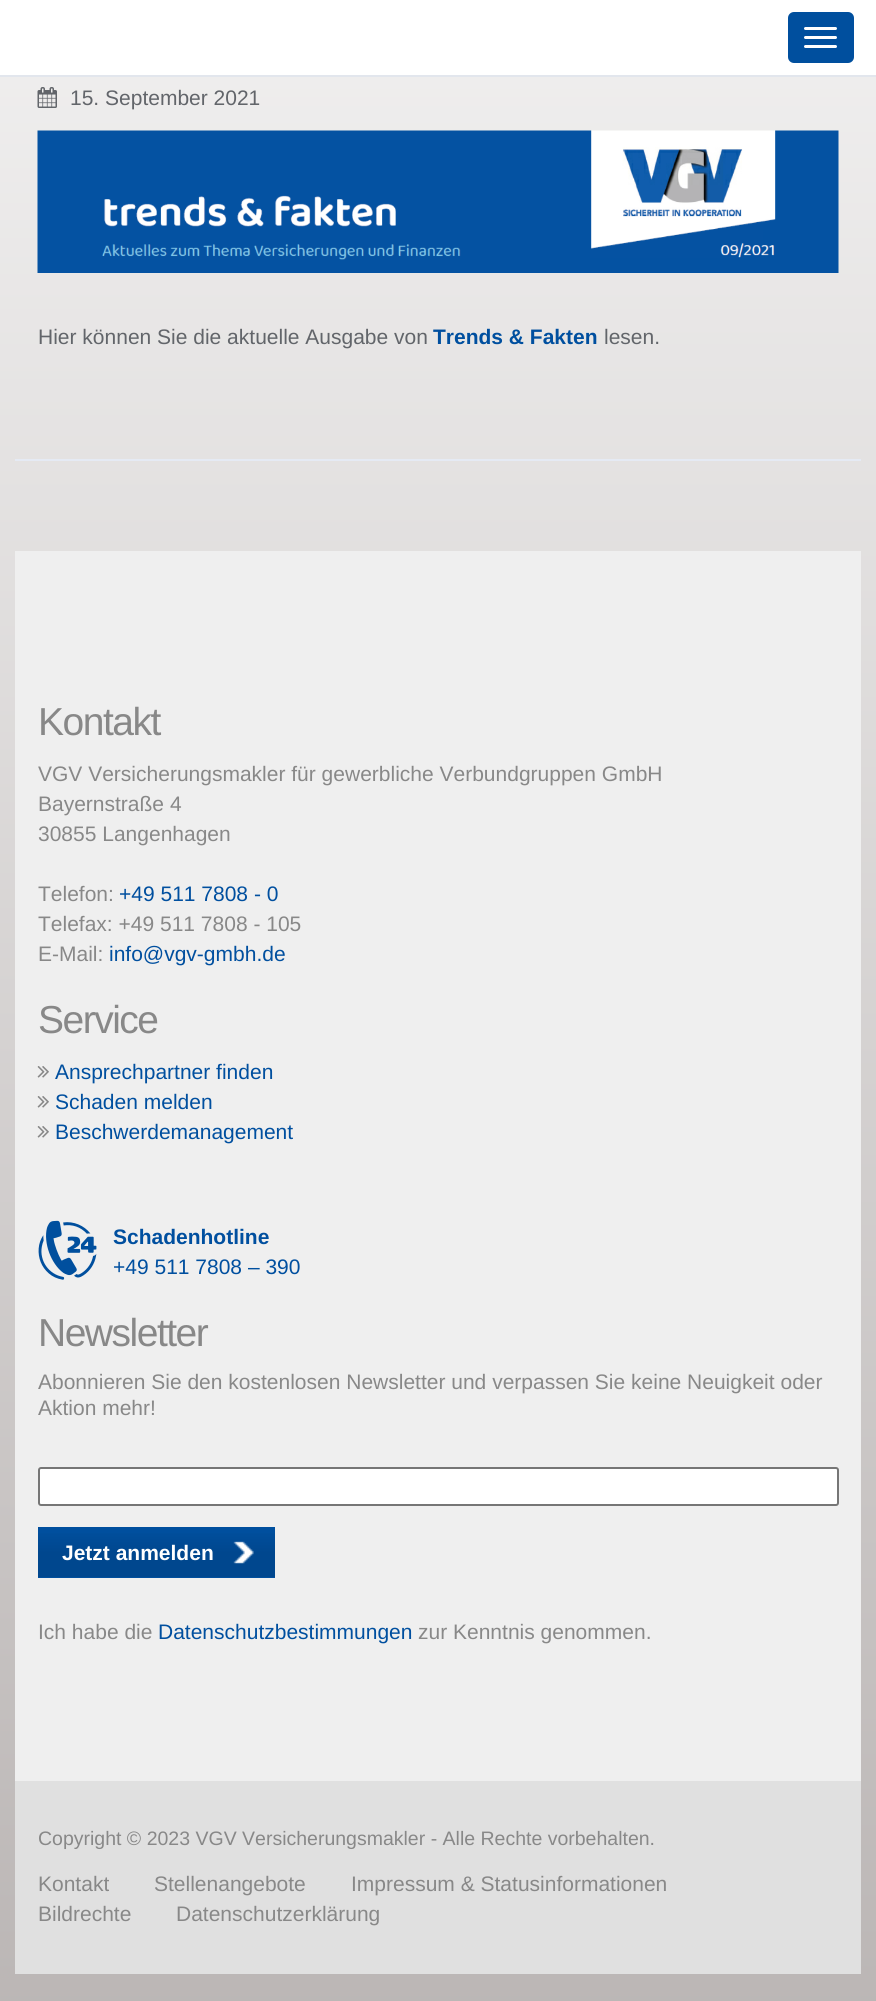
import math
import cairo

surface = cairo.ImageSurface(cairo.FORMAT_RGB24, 876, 2001)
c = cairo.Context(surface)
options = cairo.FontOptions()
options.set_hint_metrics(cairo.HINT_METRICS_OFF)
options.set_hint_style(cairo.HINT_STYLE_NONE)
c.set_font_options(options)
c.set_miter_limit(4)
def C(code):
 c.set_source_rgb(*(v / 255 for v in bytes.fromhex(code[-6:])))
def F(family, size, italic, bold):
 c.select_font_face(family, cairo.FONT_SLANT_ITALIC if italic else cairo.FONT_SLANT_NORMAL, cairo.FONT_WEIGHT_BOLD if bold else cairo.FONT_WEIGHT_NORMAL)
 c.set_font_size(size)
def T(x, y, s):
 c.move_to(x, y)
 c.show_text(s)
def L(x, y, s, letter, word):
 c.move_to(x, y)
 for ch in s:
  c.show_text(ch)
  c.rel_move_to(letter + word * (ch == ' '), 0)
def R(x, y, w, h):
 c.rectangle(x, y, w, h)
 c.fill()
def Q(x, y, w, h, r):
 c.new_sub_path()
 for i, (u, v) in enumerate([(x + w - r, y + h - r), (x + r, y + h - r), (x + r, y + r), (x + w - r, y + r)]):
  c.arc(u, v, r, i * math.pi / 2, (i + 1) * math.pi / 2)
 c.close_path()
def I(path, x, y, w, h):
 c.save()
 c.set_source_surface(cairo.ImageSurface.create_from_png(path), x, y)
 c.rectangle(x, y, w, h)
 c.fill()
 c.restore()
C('ffffff')
c.paint()
gradient = cairo.LinearGradient(438,-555,438,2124)
gradient.add_color_stop_rgba(0,1,1,1,1)
gradient.add_color_stop_rgba(1,0.722,0.702,0.698,1)
c.set_source(gradient)
R(0,77,876,1924)
C('e2e6ed')
R(0,75,876,2)
C('004f9e')
Q(789,13,64,49,5)
c.fill_preserve()
c.stroke()
C('ffffff')
Q(804,27,33,3,1.5)
c.fill()
Q(804,36,33,3,1.5)
c.fill()
Q(804,45,33,3,1.5)
c.fill()
C('e5eaf4')
R(15,459,846,2)
I('1.png',37,87,20,21)
F('Liberation Sans',21,0,0)
C('62656a')
T(70,105,'15. September 2021')
I('2.png',37,130,802,143)
T(38,344,'Hier können Sie die aktuelle Ausgabe von')
F('Liberation Sans',21,0,1)
C('004f9f')
T(433,344,'Trends & Fakten')
F('Liberation Sans',21,0,0)
C('62656a')
T(604,344,'lesen.')
C('efefef')
R(15,551,846,1230)
F('Liberation Sans',39,0,0)
C('888888')
L(38,735,'Kontakt',-1.5,0)
F('Liberation Sans',21,0,0)
T(38,781,'VGV Versicherungsmakler für gewerbliche Verbundgruppen GmbH')
T(38,811,'Bayernstraße 4')
T(38,841,'30855 Langenhagen')
T(38,901,'Telefon:')
C('004f9f')
T(119,901,'+49 511 7808 - 0')
C('888888')
T(38,931,'Telefax: +49 511 7808 - 105')
T(38,961,'E-Mail:')
C('004f9f')
T(109,961,'info@vgv-gmbh.de')
F('Liberation Sans',39,0,0)
C('888888')
L(38,1033,'Service',-1.5,0)
I('3.png',37,1066,12,12)
F('Liberation Sans',21,0,0)
C('004f9f')
T(55,1079,'Ansprechpartner finden')
I('3.png',37,1096,12,12)
T(55,1109,'Schaden melden')
I('3.png',37,1126,12,12)
T(55,1139,'Beschwerdemanagement')
I('4.png',38,1220,59,60)
F('Liberation Sans',21,0,1)
T(113,1244,'Schadenhotline')
F('Liberation Sans',21,0,0)
T(113,1274,'+49 511 7808 – 390')
F('Liberation Sans',39,0,0)
C('888888')
L(38,1346,'Newsletter',-1.5,0)
F('Liberation Sans',21,0,0)
T(38,1389,'Abonnieren Sie den kostenlosen Newsletter und verpassen Sie keine Neuigkeit oder')
T(38,1415,'Aktion mehr!')
C('ffffff')
Q(39,1468,799,37,2)
c.fill_preserve()
C('767676')
c.stroke()
C('004f9e')
R(38,1527,237,51)
gradient = cairo.LinearGradient(273,1529,273,1577)
gradient.add_color_stop_rgba(0,0,0.31,0.62,1)
gradient.add_color_stop_rgba(.5,0,0.278,0.557,1)
gradient.add_color_stop_rgba(1,0,0.278,0.557,1)
c.set_source(gradient)
R(38,1533,237,44)
F('Liberation Sans',21,0,1)
C('ffffff')
T(62,1560,'Jetzt anmelden')
I('5.png',233,1541,21,23)
F('Liberation Sans',21,0,0)
C('888888')
T(38,1639,'Ich habe die')
C('004f9f')
T(158,1639,'Datenschutzbestimmungen')
C('888888')
T(418,1639,'zur Kenntnis genommen.')
C('e0e0e0')
R(15,1781,846,193)
F('Liberation Sans',19.5,0,0)
C('888888')
T(38,1845,'Copyright © 2023 VGV Versicherungsmakler - Alle Rechte vorbehalten.')
F('Liberation Sans',21,0,0)
T(38,1891,'Kontakt')
T(154,1891,'Stellenangebote')
T(351,1891,'Impressum & Statusinformationen')
T(38,1921,'Bildrechte')
T(176,1921,'Datenschutzerklärung')
surface.write_to_png('o.png')
